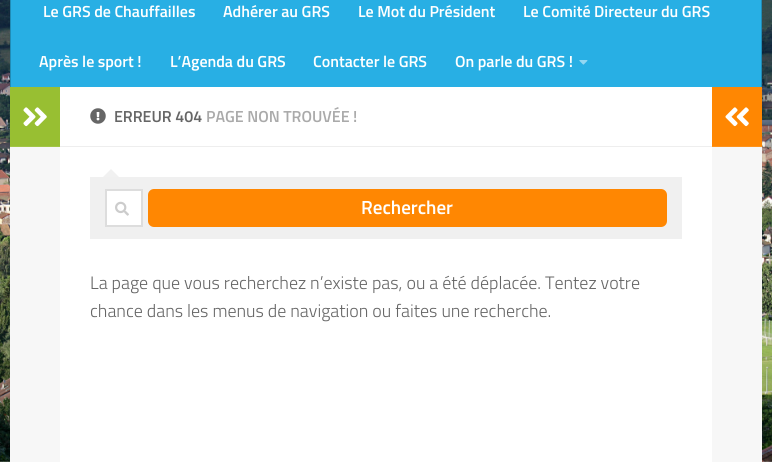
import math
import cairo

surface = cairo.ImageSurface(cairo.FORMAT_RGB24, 772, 462)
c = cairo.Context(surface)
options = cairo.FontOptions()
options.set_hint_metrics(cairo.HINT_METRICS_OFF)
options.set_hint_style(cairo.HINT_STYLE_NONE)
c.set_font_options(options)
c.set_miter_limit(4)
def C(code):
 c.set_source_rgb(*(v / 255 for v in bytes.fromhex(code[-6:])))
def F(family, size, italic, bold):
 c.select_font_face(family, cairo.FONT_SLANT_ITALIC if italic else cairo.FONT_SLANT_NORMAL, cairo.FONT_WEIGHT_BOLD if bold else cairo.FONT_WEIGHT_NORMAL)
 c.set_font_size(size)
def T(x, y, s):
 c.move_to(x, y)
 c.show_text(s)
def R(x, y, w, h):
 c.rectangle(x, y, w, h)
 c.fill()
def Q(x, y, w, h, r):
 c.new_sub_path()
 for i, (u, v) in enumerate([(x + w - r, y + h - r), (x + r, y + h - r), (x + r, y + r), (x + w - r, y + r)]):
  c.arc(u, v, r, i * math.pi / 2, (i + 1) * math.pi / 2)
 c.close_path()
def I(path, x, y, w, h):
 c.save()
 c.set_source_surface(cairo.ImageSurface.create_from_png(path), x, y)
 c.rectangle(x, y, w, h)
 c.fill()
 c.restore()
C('ffffff')
c.paint()
I('1.png',0,0,772,462)
C('28afe4')
R(11,0,750,87)
C('208cb6')
R(761,0,1,87)
R(10,0,1,87)
F('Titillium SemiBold',16,0,0)
C('ffffff')
T(43,17,'Le GRS de Chauffailles')
T(223,17,'Adhérer au GRS')
T(358,17,'Le Mot du Président')
T(523,17,'Le Comité Directeur du GRS')
T(39,67,'Après le sport !')
T(170,67,'L’Agenda du GRS')
T(313,67,'Contacter le GRS')
T(455,67,'On parle du GRS !')
I('2.png',579,60,9,5)
R(60,87,652,375)
C('f7f7f7')
R(10,147,50,315)
C('98bf32')
R(10,87,50,59)
C('a2c547')
R(10,146,50,1)
I('3.png',23,107,24,20)
C('eeeeee')
R(60,146,652,1)
I('4.png',90,108,16,16)
C('666666')
T(114,122,'ERREUR 404')
C('aaaaaa')
T(206,122,'PAGE NON TROUVÉE !')
C('f0f0f0')
R(90,177,592,62)
C('f1f1f1')
c.new_path()
c.move_to(119,177)
c.line_to(103,177)
c.line_to(111,169)
c.close_path()
c.fill()
C('ffffff')
c.rectangle(106,190,36,36)
c.fill_preserve()
C('dddddd')
c.stroke()
I('5.png',115,201,14,15)
C('ff8702')
Q(148,189,519,38,6)
c.fill()
F('Titillium SemiBold',19,0,0)
C('ffffff')
T(361,214,'Rechercher')
F('Titillium Light',18,0,0)
C('666666')
T(90,289,'La page que vous recherchez n’existe pas, ou a été déplacée. Tentez votre')
T(90,317,'chance dans les menus de navigation ou faites une recherche.')
C('ff8702')
R(712,87,50,59)
C('ff931b')
R(712,146,50,1)
I('6.png',725,107,24,20)
C('f7f7f7')
R(712,147,50,315)
surface.write_to_png('o.png')
